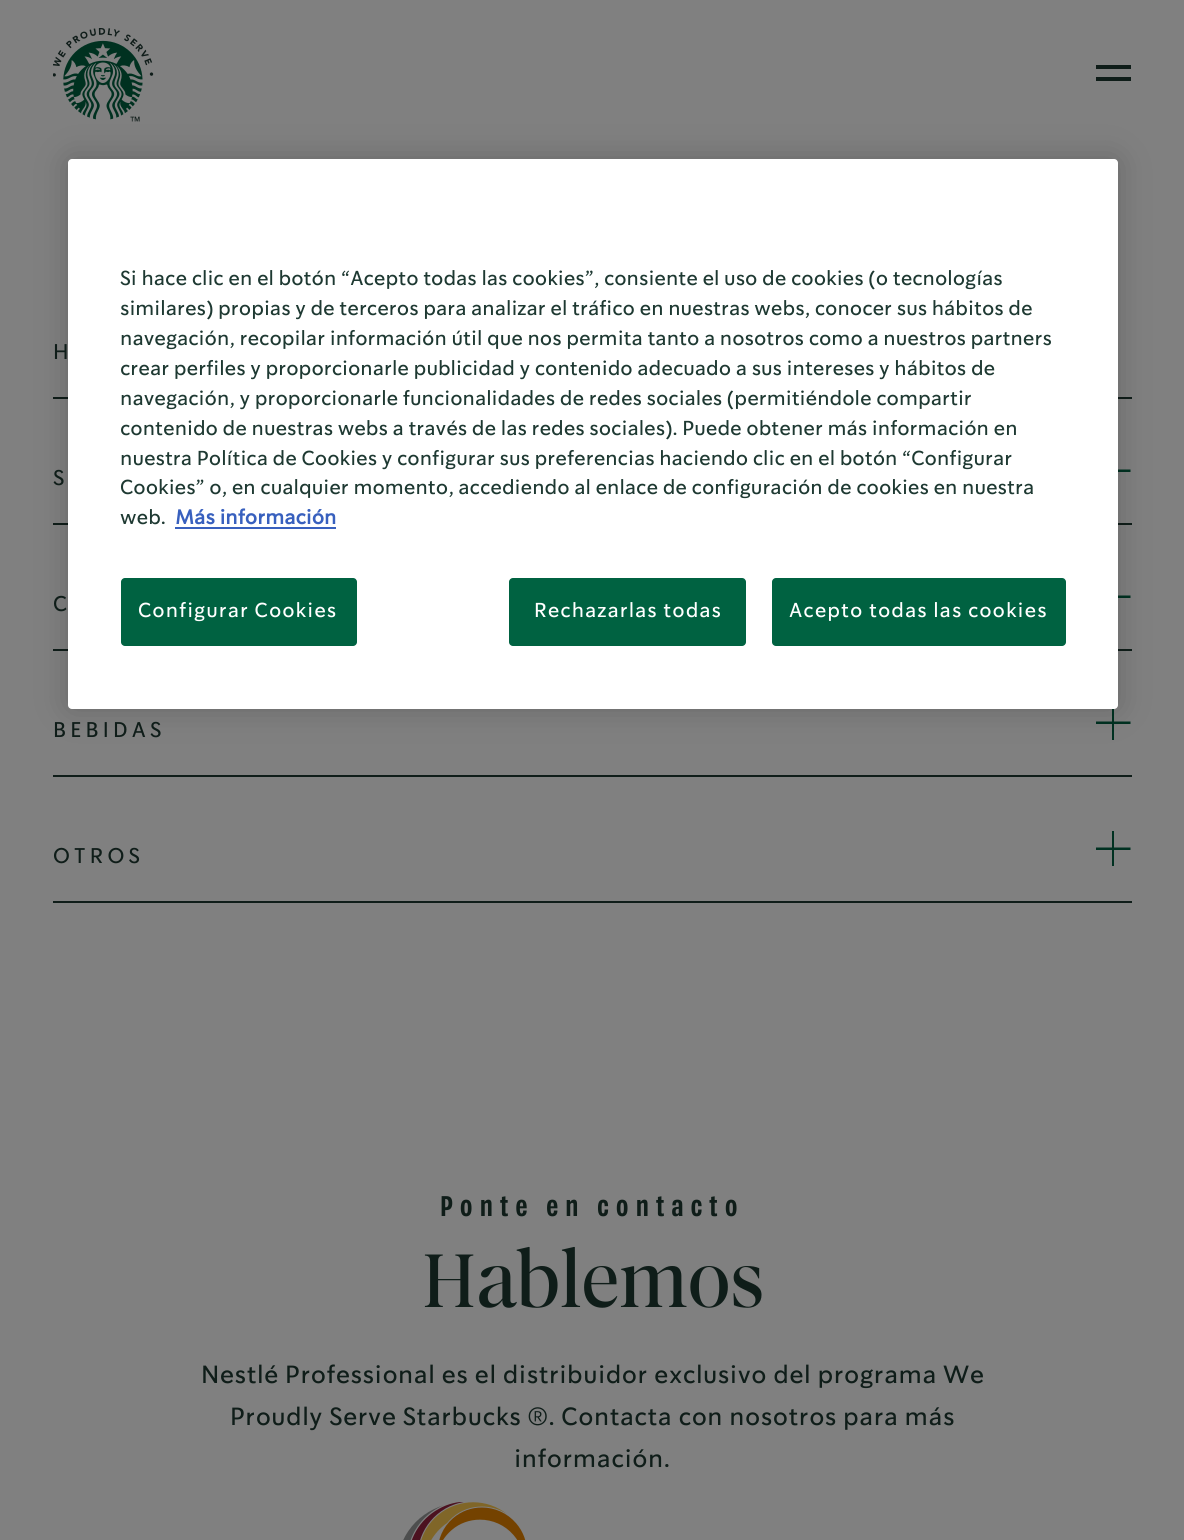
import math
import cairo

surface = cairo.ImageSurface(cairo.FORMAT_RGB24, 1184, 1540)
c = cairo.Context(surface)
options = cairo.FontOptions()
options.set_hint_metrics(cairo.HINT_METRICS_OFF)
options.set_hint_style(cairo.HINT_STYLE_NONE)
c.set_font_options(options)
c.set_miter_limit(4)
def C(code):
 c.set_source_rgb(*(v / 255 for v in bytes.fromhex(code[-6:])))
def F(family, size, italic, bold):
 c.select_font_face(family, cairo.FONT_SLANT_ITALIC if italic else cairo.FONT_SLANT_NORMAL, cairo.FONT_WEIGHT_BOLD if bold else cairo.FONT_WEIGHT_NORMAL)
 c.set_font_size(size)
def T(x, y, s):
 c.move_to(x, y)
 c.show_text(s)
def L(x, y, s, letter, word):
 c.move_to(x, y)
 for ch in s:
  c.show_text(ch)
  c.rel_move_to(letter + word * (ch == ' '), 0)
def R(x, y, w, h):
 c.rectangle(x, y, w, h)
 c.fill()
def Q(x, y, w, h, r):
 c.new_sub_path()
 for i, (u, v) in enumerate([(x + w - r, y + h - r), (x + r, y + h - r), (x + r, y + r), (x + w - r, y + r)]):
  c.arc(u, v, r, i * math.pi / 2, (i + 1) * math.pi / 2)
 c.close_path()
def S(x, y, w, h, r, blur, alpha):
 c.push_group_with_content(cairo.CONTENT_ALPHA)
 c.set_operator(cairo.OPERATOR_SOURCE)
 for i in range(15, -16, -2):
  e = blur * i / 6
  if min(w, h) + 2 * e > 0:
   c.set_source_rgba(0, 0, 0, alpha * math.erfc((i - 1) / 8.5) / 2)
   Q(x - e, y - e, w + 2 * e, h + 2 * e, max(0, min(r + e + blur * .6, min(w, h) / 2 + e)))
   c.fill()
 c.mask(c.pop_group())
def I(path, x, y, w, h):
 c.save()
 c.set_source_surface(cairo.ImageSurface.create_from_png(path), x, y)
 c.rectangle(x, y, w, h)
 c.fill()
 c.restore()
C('808080')
c.paint()
I('1.png',53,28,101,94)
C('0f1d19')
R(53,397,1079,2)
R(53,523,1079,2)
C('003121')
c.new_path()
c.move_to(1112,453)
c.line_to(1112,469.5)
c.line_to(1095.5,469.5)
c.line_to(1095.5,472)
c.line_to(1112,472)
c.line_to(1112,488)
c.line_to(1114,488)
c.line_to(1114,472)
c.line_to(1130.5,472)
c.line_to(1130.5,469.5)
c.line_to(1114,469.5)
c.line_to(1114,453)
c.close_path()
c.fill()
C('0f1d19')
R(53,649,1079,2)
C('003121')
c.new_path()
c.move_to(1112,579)
c.line_to(1112,595.5)
c.line_to(1095.5,595.5)
c.line_to(1095.5,598)
c.line_to(1112,598)
c.line_to(1112,614)
c.line_to(1114,614)
c.line_to(1114,598)
c.line_to(1130.5,598)
c.line_to(1130.5,595.5)
c.line_to(1114,595.5)
c.line_to(1114,579)
c.close_path()
c.fill()
c.save()
c.rectangle(1096,705,35,35)
c.clip()
c.new_path()
c.move_to(1112,705)
c.line_to(1112,721.5)
c.line_to(1095.5,721.5)
c.line_to(1095.5,724)
c.line_to(1112,724)
c.line_to(1112,740)
c.line_to(1114,740)
c.line_to(1114,724)
c.line_to(1130.5,724)
c.line_to(1130.5,721.5)
c.line_to(1114,721.5)
c.line_to(1114,705)
c.close_path()
c.fill()
c.restore()
C('000000')
S(68,159,1050,550,4,16,.2)
C('ffffff')
Q(68,159,1050,550,4)
c.fill()
F('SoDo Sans',19.9,0,0)
C('1e3932')
T(120,285,'Si hace clic en el botón “Acepto todas las cookies”, consiente el uso de cookies (o tecnologías')
T(120,315,'similares) propias y de terceros para analizar el tráfico en nuestras webs, conocer sus hábitos de')
T(120,345,'navegación, recopilar información útil que nos permita tanto a nosotros como a nuestros partners')
T(120,375,'crear perfiles y proporcionarle publicidad y contenido adecuado a sus intereses y hábitos de')
T(120,405,'navegación, y proporcionarle funcionalidades de redes sociales (permitiéndole compartir')
T(120,435,'contenido de nuestras webs a través de las redes sociales). Puede obtener más información en')
T(120,465,'nuestra Política de Cookies y configurar sus preferencias haciendo clic en el botón “Configurar')
T(120,494,'Cookies” o, en cualquier momento, accediendo al enlace de configuración de cookies en nuestra')
T(120,524,'web.')
F('SoDo Sans',19.9,0,1)
C('3860be')
T(175,524,'Más información')
R(175,527,161,2)
C('006241')
Q(121,578,236,68,4)
c.fill()
F('SoDo Sans',19.9,0,0)
C('ffffff')
L(138,617,'Configurar Cookies',1,0)
C('006241')
Q(509,578,237,68,4)
c.fill()
C('ffffff')
L(534,617,'Rechazarlas todas',1,0)
C('006241')
Q(772,578,294,68,4)
c.fill()
C('ffffff')
L(789,617,'Acepto todas las cookies',1,0)
C('0f1d19')
R(1096,65,35,4)
R(1096,77,35,4)
F('SoDo Sans',21,0,0)
L(53,359,'H',4.25,0)
L(53,485,'S',4.25,0)
L(53,611,'C',4.25,0)
R(53,775,1079,2)
L(53,737,'BEBIDAS',4.25,0)
R(53,901,1079,2)
L(53,863,'OTROS',4.25,0)
c.save()
c.rectangle(1096,831,35,35)
c.clip()
C('003121')
c.new_path()
c.move_to(1112,831)
c.line_to(1112,847.5)
c.line_to(1095.5,847.5)
c.line_to(1095.5,850)
c.line_to(1112,850)
c.line_to(1112,866)
c.line_to(1114,866)
c.line_to(1114,850)
c.line_to(1130.5,850)
c.line_to(1130.5,847.5)
c.line_to(1114,847.5)
c.line_to(1114,831)
c.close_path()
c.fill()
c.restore()
F('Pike',28,0,1)
L(440,1216,'Ponte en contacto',7,0)
F('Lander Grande',70,0,0)
T(421,1307,'Hablemos')
F('SoDo Sans',24.5,0,0)
L(201,1383,'Nestlé Professional es el distribuidor exclusivo del programa We',.5,0)
L(230,1425,'Proudly Serve Starbucks ®. Contacta con nosotros para más',.5,0)
L(514,1467,'información.',.5,0)
I('2.png',403,1502,123,38)
surface.write_to_png('o.png')
